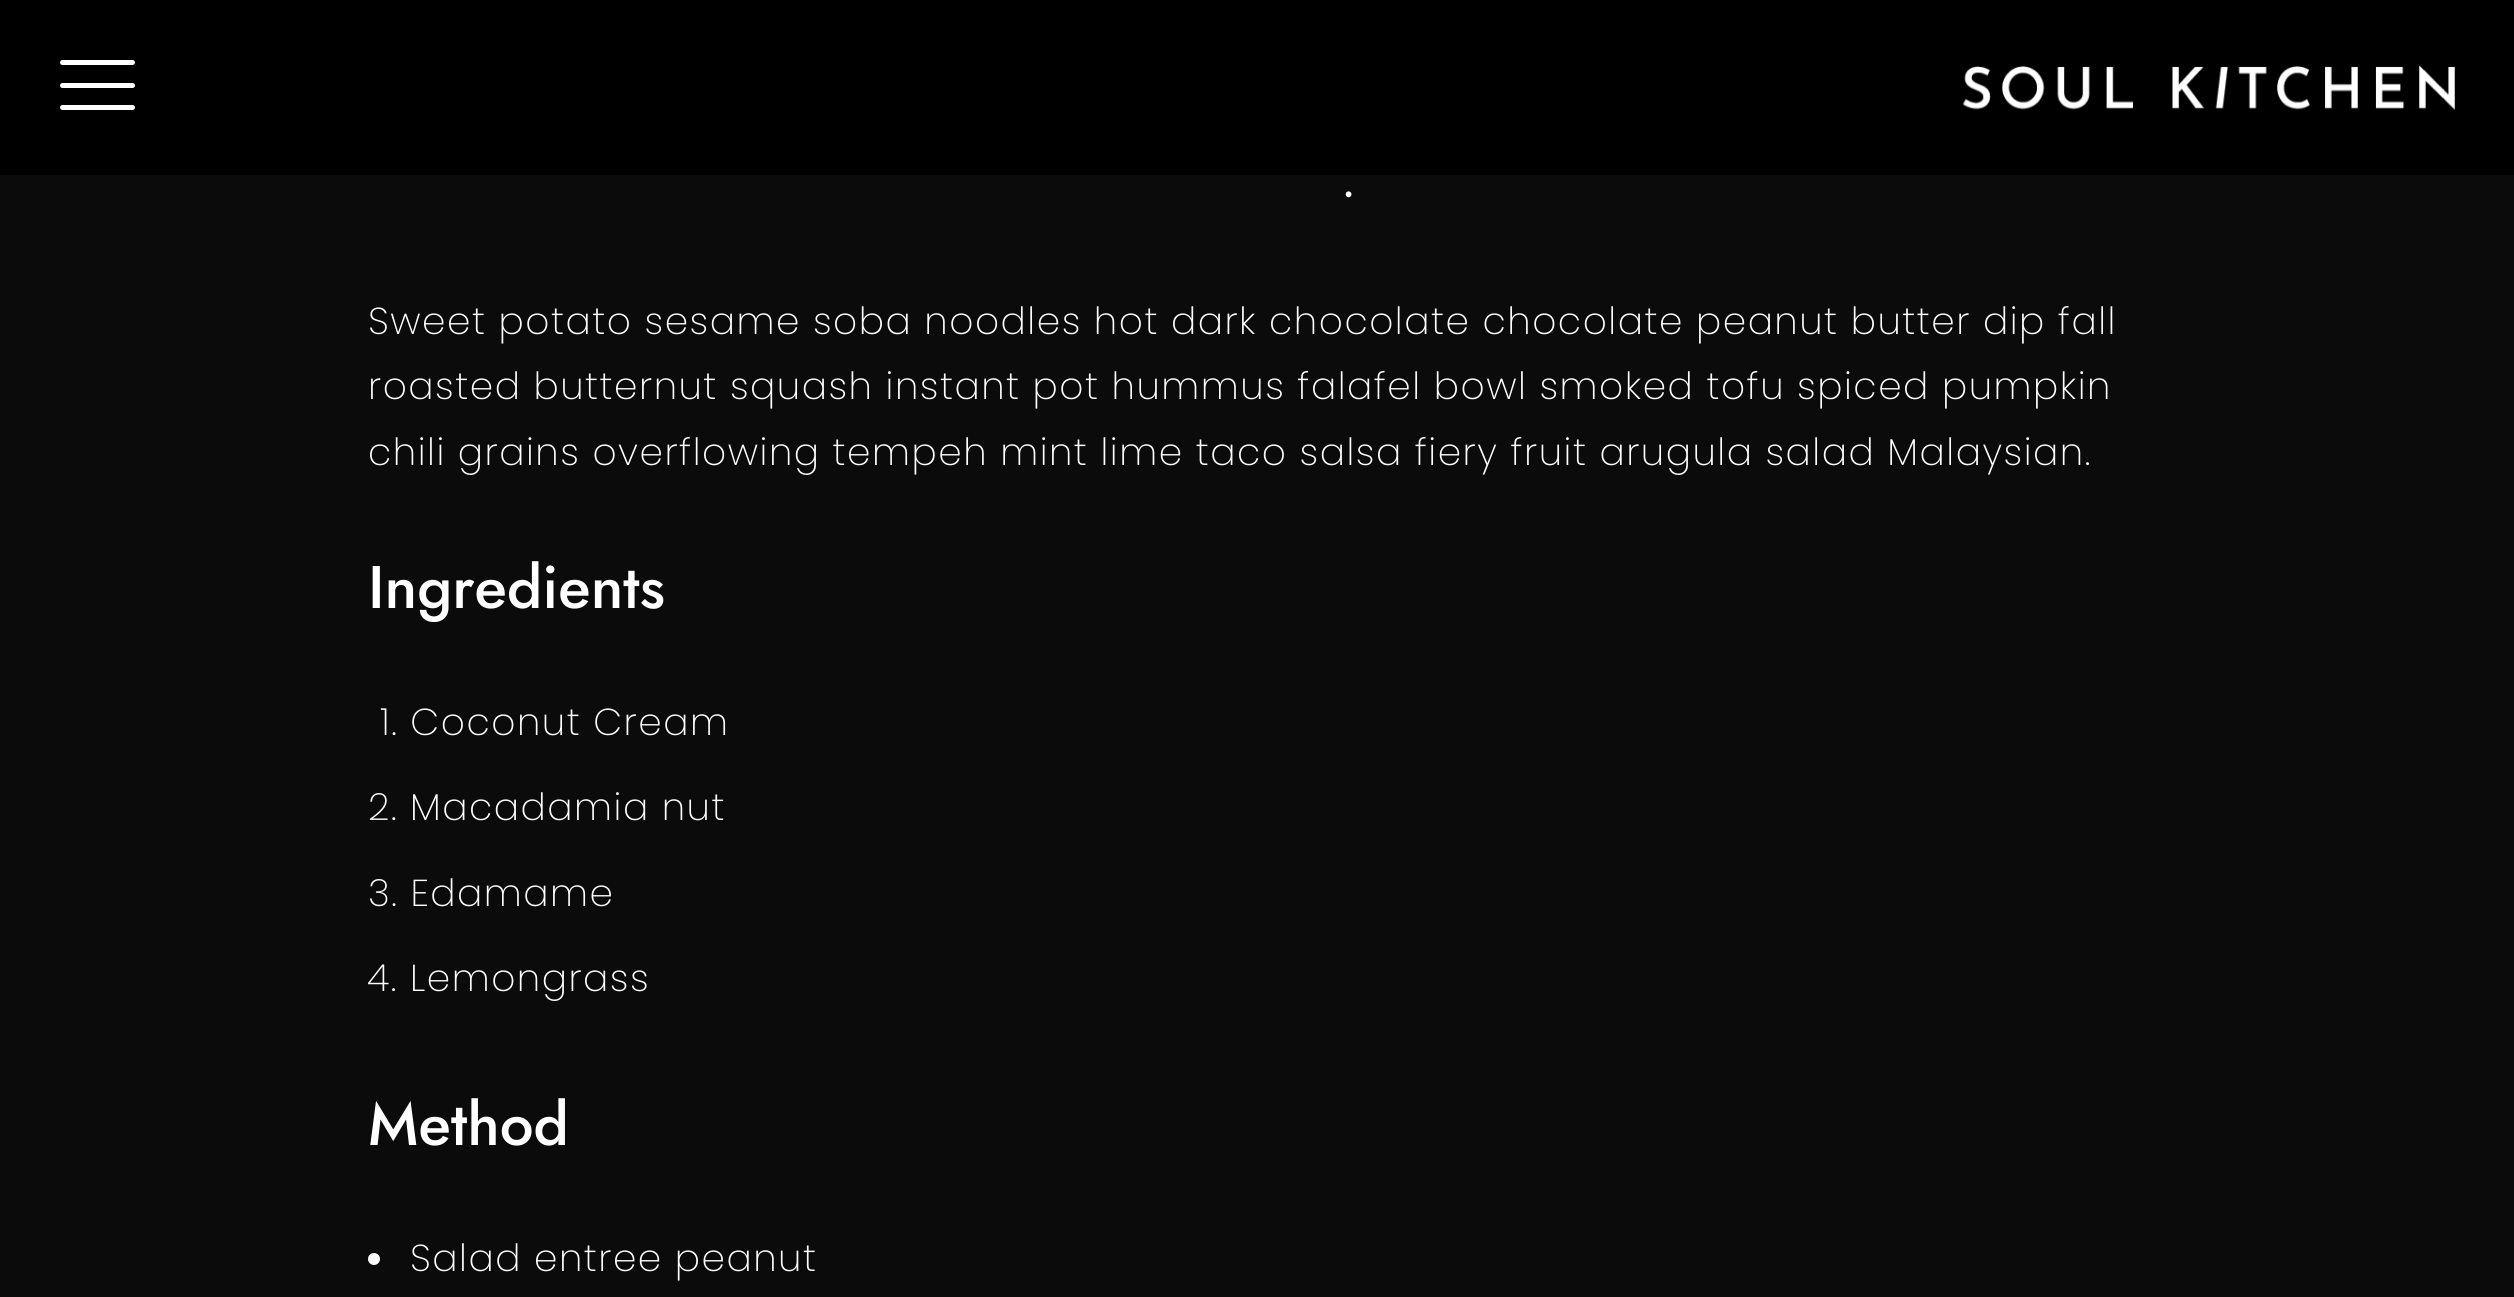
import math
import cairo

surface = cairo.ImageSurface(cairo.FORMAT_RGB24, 2514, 1297)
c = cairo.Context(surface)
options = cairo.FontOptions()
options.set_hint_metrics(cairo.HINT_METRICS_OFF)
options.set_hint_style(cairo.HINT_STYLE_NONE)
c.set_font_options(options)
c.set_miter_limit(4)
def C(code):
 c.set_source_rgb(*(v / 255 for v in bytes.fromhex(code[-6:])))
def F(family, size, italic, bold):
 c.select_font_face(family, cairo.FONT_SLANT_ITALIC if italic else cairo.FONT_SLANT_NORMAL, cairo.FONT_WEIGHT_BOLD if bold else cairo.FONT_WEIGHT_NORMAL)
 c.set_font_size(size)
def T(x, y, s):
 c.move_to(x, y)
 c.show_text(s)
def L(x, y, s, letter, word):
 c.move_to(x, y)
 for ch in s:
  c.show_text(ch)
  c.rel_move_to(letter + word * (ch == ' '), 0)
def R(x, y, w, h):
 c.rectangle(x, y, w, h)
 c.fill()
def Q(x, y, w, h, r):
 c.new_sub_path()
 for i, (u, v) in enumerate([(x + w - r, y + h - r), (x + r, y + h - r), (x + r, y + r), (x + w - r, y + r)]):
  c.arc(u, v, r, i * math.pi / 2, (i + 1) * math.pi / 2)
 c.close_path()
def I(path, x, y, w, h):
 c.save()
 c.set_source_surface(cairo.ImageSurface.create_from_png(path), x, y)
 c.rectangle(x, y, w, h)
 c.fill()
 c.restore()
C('0a0b0a')
c.paint()
C('000000')
R(0,0,2514,175)
C('ffffff')
Q(60,83,75,5,2.5)
c.fill()
Q(60,60,75,5,2.5)
c.fill()
Q(60,105,75,5,2.5)
c.fill()
I('1.png',1963,65,492,45)
F('Poppins ExtraLight',75,0,0)
L(1343,197,'.',1.5,0)
F('Poppins ExtraLight',37.5,0,0)
L(368,334,'Sweet potato sesame soba noodles hot dark chocolate chocolate peanut butter dip fall',1.5,0)
L(368,399,'roasted butternut squash instant pot hummus falafel bowl smoked tofu spiced pumpkin',1.5,0)
L(368,465,'chili grains overflowing tempeh mint lime taco salsa fiery fruit arugula salad Malaysian.',1.5,0)
F('Jost Medium',60,0,0)
T(368,608,'Ingredients')
F('Poppins ExtraLight',37.5,0,0)
L(380,735,'1. Coconut Cream',1.5,0)
L(368,820,'2. Macadamia nut',1.5,0)
L(368,906,'3. Edamame',1.5,0)
L(367,991,'4. Lemongrass',1.5,0)
F('Jost Medium',60,0,0)
T(368,1145,'Method')
c.new_path()
c.arc(374,1259,6,0,2 * math.pi)
c.fill()
F('Poppins ExtraLight',37.5,0,0)
L(410,1271,'Salad entree peanut',1.5,0)
surface.write_to_png('o.png')
